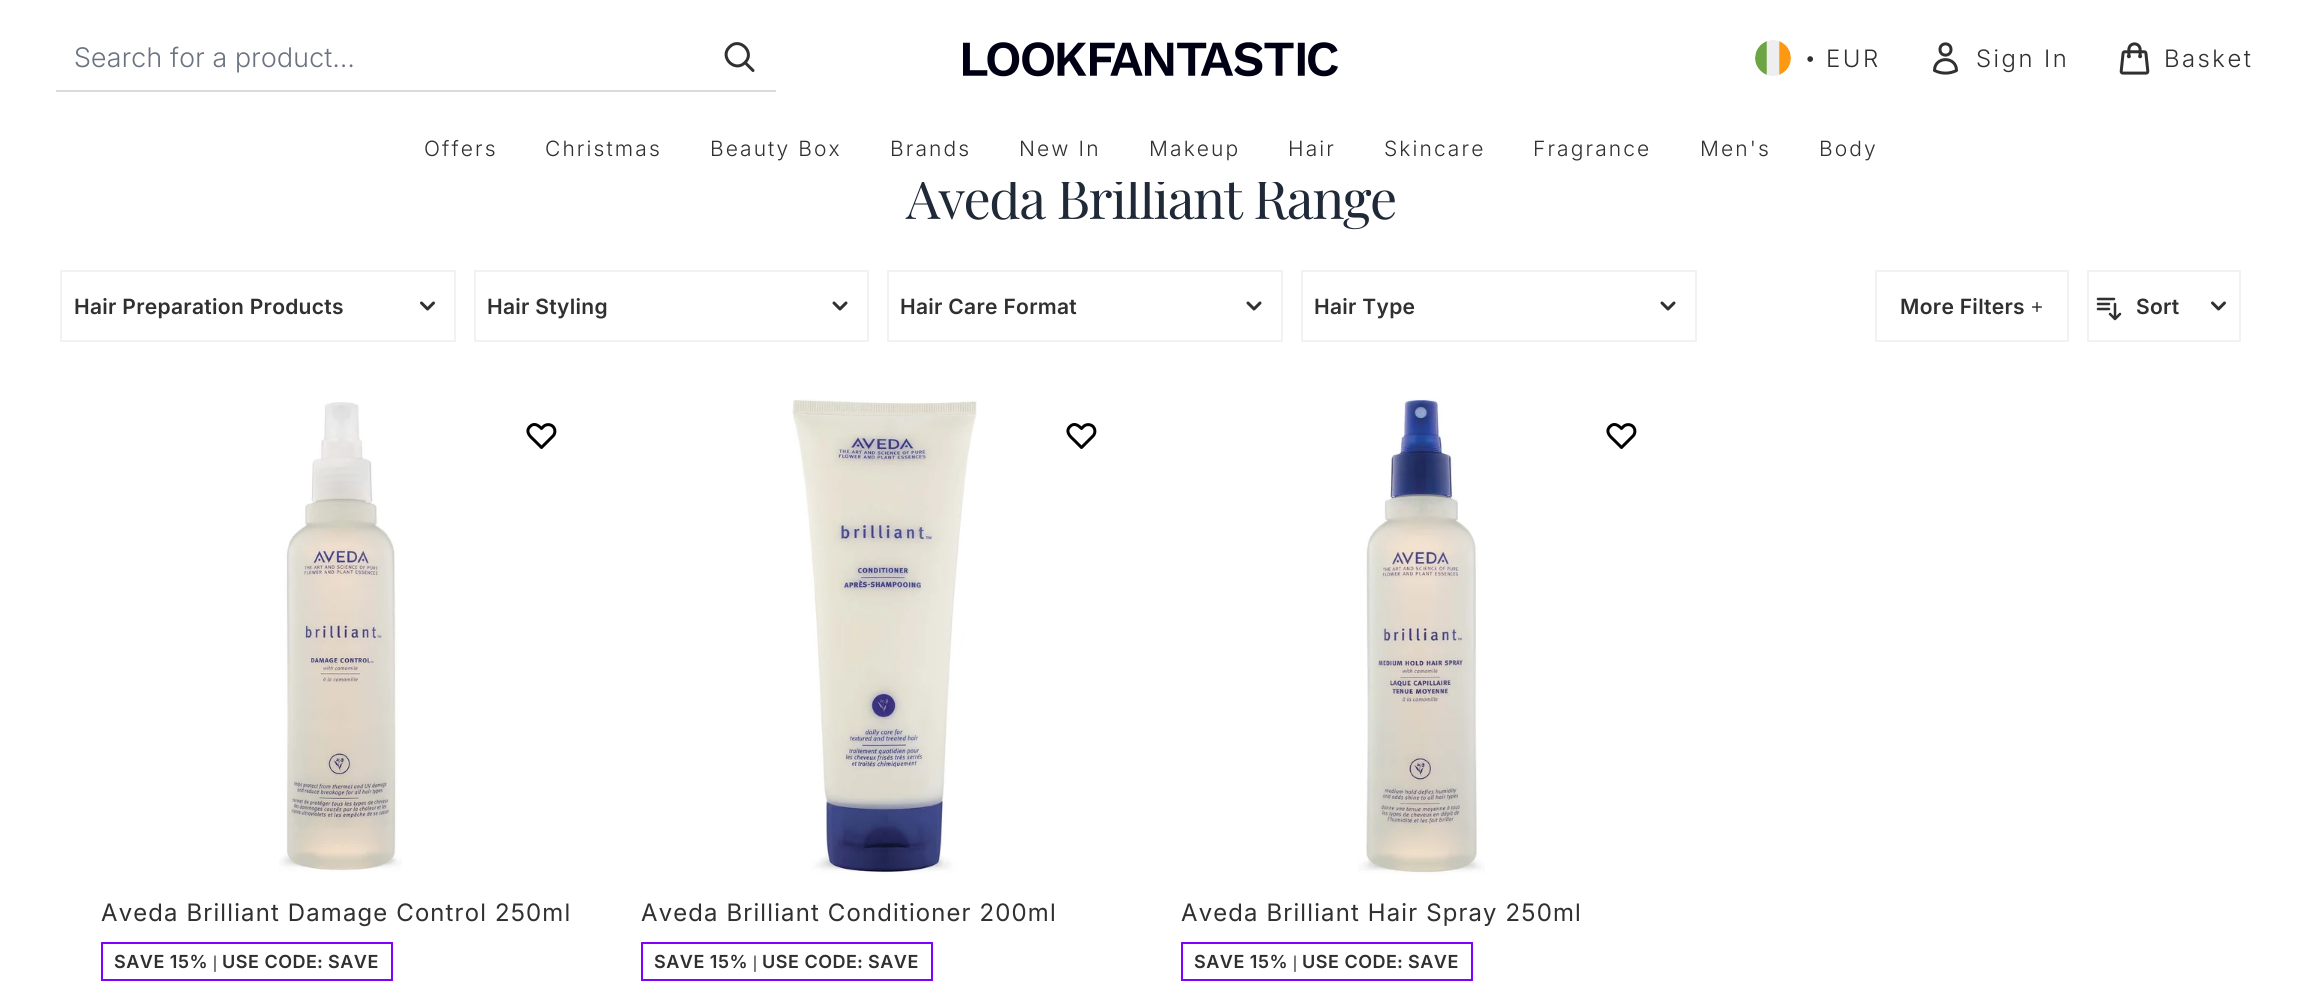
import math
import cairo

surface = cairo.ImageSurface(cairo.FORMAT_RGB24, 2301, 994)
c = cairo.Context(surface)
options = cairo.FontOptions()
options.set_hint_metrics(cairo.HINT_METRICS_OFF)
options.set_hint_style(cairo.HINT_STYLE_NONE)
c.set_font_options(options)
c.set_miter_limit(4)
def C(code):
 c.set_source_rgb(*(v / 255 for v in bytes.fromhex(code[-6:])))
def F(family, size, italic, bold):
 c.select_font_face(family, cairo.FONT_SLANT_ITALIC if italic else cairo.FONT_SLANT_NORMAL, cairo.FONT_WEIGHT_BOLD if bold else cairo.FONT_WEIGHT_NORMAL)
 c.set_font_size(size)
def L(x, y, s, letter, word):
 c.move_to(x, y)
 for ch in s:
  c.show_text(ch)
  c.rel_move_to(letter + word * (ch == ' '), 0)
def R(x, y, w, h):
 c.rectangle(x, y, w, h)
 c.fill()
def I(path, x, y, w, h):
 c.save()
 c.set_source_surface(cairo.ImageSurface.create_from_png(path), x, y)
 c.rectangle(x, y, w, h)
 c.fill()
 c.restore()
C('ffffff')
c.paint()
C('dbdbdb')
R(56,90,720,2)
F('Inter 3 Light',27,0,0)
C('6b7280')
L(74,67,'Search for a product...',.3,0)
c.new_path()
c.move_to(753,70.5)
c.line_to(745,62.5)
c.move_to(745,62.5)
c.curve_to(755.5,52.5,739.5,36.5,729.5,47)
c.curve_to(719,57,735,73,745,62.5)
c.close_path()
C('303030')
c.set_line_width(3)
c.set_line_cap(cairo.LINE_CAP_ROUND)
c.set_line_join(cairo.LINE_JOIN_ROUND)
c.stroke()
I('1.png',963,42,375,35)
I('2.png',1755,40,36,36)
F('Liberation Serif',24,0,0)
L(1806,67,'•',.3,0)
F('Inter Light',24,0,0)
L(1826,67,'EUR',2.5,0)
c.new_path()
c.move_to(1951,49.5)
c.curve_to(1951,57,1940,57,1940,49.5)
c.curve_to(1940,42,1951,42,1951,49.5)
c.close_path()
c.move_to(1934.5,70.5)
c.curve_to(1934.5,56,1956.5,56,1956.5,70.5)
c.curve_to(1949.5,74,1941.5,74,1934.5,70.5)
c.close_path()
c.stroke()
F('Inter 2 Light',24,0,0)
L(1976,67,'Sign In',2.5,0)
I('3.png',2119,42,31,33)
L(2164,67,'Basket',2.5,0)
F('Playfair Display',54,0,0)
C('1f2937')
L(906,219,'Aveda Brilliant Range',-1.5,0)
C('ffffff')
R(921,176,356,6)
F('Inter Light',21,0,0)
C('303030')
L(424,156,'Offers',2.1,0)
L(545,156,'Christmas',2.1,0)
L(710,156,'Beauty Box',2.1,0)
L(890,156,'Brands',2.1,0)
L(1019,156,'New In',2.1,0)
L(1149,156,'Makeup',2.1,0)
L(1288,156,'Hair',2.1,0)
L(1384,156,'Skincare',2.1,0)
L(1533,156,'Fragrance',2.1,0)
L(1700,156,'Men\'s',2.1,0)
L(1819,156,'Body',2.1,0)
c.rectangle(61,271,394,70)
C('f1f2f3')
c.set_line_width(2)
c.set_line_cap(cairo.LINE_CAP_BUTT)
c.set_line_join(cairo.LINE_JOIN_MITER)
c.stroke()
F('Inter SemiBold',21,0,0)
C('303030')
L(74,314,'Hair Preparation Products',.3,0)
I('4.png',420,301,15,10)
c.rectangle(475,271,393,70)
C('f1f2f3')
c.stroke()
C('303030')
L(487,314,'Hair Styling',.3,0)
I('5.png',832,301,16,10)
c.rectangle(888,271,394,70)
C('f1f2f3')
c.stroke()
C('303030')
L(900,314,'Hair Care Format',.3,0)
I('5.png',1246,301,16,10)
c.rectangle(1302,271,394,70)
C('f1f2f3')
c.stroke()
C('303030')
L(1314,314,'Hair Type',.3,0)
I('5.png',1660,301,16,10)
c.rectangle(1876,271,192,70)
C('f1f2f3')
c.stroke()
C('303030')
L(1900,314,'More Filters',.3,0)
F('Liberation Serif',21,0,1)
L(2031,314,'+',.3,0)
c.rectangle(2088,271,152,70)
C('f1f2f3')
c.stroke()
c.new_path()
c.move_to(2098,299)
c.line_to(2114,299)
c.move_to(2098,304)
c.line_to(2109,304)
c.move_to(2098,309)
c.line_to(2109,309)
c.move_to(2115,304)
c.line_to(2115,319)
c.move_to(2115,319)
c.line_to(2110,314)
c.move_to(2115,319)
c.line_to(2120,314)
C('303030')
c.set_line_width(2.5)
c.set_line_cap(cairo.LINE_CAP_ROUND)
c.set_line_join(cairo.LINE_JOIN_ROUND)
c.stroke()
F('Inter SemiBold',21,0,0)
L(2136,314,'Sort',.3,0)
I('4.png',2211,301,15,10)
I('6.png',279,402,123,470)
c.new_path()
c.move_to(530,426.5)
c.curve_to(525,431.5,530,436.5,534,440)
c.line_to(541.5,447.5)
c.line_to(553,436)
c.curve_to(555.5,433.5,555.5,429,553,426.5)
c.curve_to(550.5,424,546,424,543.5,426.5)
c.line_to(541.5,428.5)
c.curve_to(538,425,534,422.5,530,426.5)
c.close_path()
C('000000')
c.set_line_width(3)
c.stroke()
F('Inter',24,0,0)
C('303030')
L(101,921,'Aveda Brilliant Damage Control 250ml',1.2,0)
c.rectangle(102,943,290,37)
C('8100ff')
c.set_line_width(2)
c.set_line_cap(cairo.LINE_CAP_BUTT)
c.set_line_join(cairo.LINE_JOIN_MITER)
c.stroke()
F('Inter SemiBold',18,0,0)
C('303030')
L(114,968,'SAVE 15%',.5,0)
F('Liberation Serif',18,0,1)
L(213,968,'|',.5,0)
F('Inter SemiBold',18,0,0)
L(222,968,'USE CODE',.5,0)
F('Liberation Serif',18,0,1)
L(317,968,':',.5,0)
F('Inter SemiBold',18,0,0)
L(328,968,'SAVE',.5,0)
I('7.png',792,399,186,476)
c.new_path()
c.move_to(1070,426.5)
c.curve_to(1065,431.5,1070,436.5,1074,440)
c.line_to(1081.5,447.5)
c.line_to(1093,436)
c.curve_to(1095.5,433.5,1095.5,429,1093,426.5)
c.curve_to(1090.5,424,1086,424,1083.5,426.5)
c.line_to(1081.5,428.5)
c.curve_to(1078,425,1074,422.5,1070,426.5)
c.close_path()
C('000000')
c.set_line_width(3)
c.set_line_cap(cairo.LINE_CAP_ROUND)
c.set_line_join(cairo.LINE_JOIN_ROUND)
c.stroke()
F('Inter',24,0,0)
C('303030')
L(641,921,'Aveda Brilliant Conditioner 200ml',1.2,0)
c.rectangle(642,943,290,37)
C('8100ff')
c.set_line_width(2)
c.set_line_cap(cairo.LINE_CAP_BUTT)
c.set_line_join(cairo.LINE_JOIN_MITER)
c.stroke()
F('Inter SemiBold',18,0,0)
C('303030')
L(654,968,'SAVE 15%',.5,0)
F('Liberation Serif',18,0,1)
L(753,968,'|',.5,0)
F('Inter SemiBold',18,0,0)
L(762,968,'USE CODE',.5,0)
F('Liberation Serif',18,0,1)
L(857,968,':',.5,0)
F('Inter SemiBold',18,0,0)
L(868,968,'SAVE',.5,0)
I('8.png',1358,398,127,477)
c.new_path()
c.move_to(1610,426.5)
c.curve_to(1605,431.5,1610,436.5,1614,440)
c.line_to(1621.5,447.5)
c.line_to(1633,436)
c.curve_to(1635.5,433.5,1635.5,429,1633,426.5)
c.curve_to(1630.5,424,1626,424,1623.5,426.5)
c.line_to(1621.5,428.5)
c.curve_to(1618,425,1614,422.5,1610,426.5)
c.close_path()
C('000000')
c.set_line_width(3)
c.set_line_cap(cairo.LINE_CAP_ROUND)
c.set_line_join(cairo.LINE_JOIN_ROUND)
c.stroke()
F('Inter',24,0,0)
C('303030')
L(1181,921,'Aveda Brilliant Hair Spray 250ml',1.2,0)
c.rectangle(1182,943,290,37)
C('8100ff')
c.set_line_width(2)
c.set_line_cap(cairo.LINE_CAP_BUTT)
c.set_line_join(cairo.LINE_JOIN_MITER)
c.stroke()
F('Inter SemiBold',18,0,0)
C('303030')
L(1194,968,'SAVE 15%',.5,0)
F('Liberation Serif',18,0,1)
L(1293,968,'|',.5,0)
F('Inter SemiBold',18,0,0)
L(1302,968,'USE CODE',.5,0)
F('Liberation Serif',18,0,1)
L(1397,968,':',.5,0)
F('Inter SemiBold',18,0,0)
L(1408,968,'SAVE',.5,0)
surface.write_to_png('o.png')
